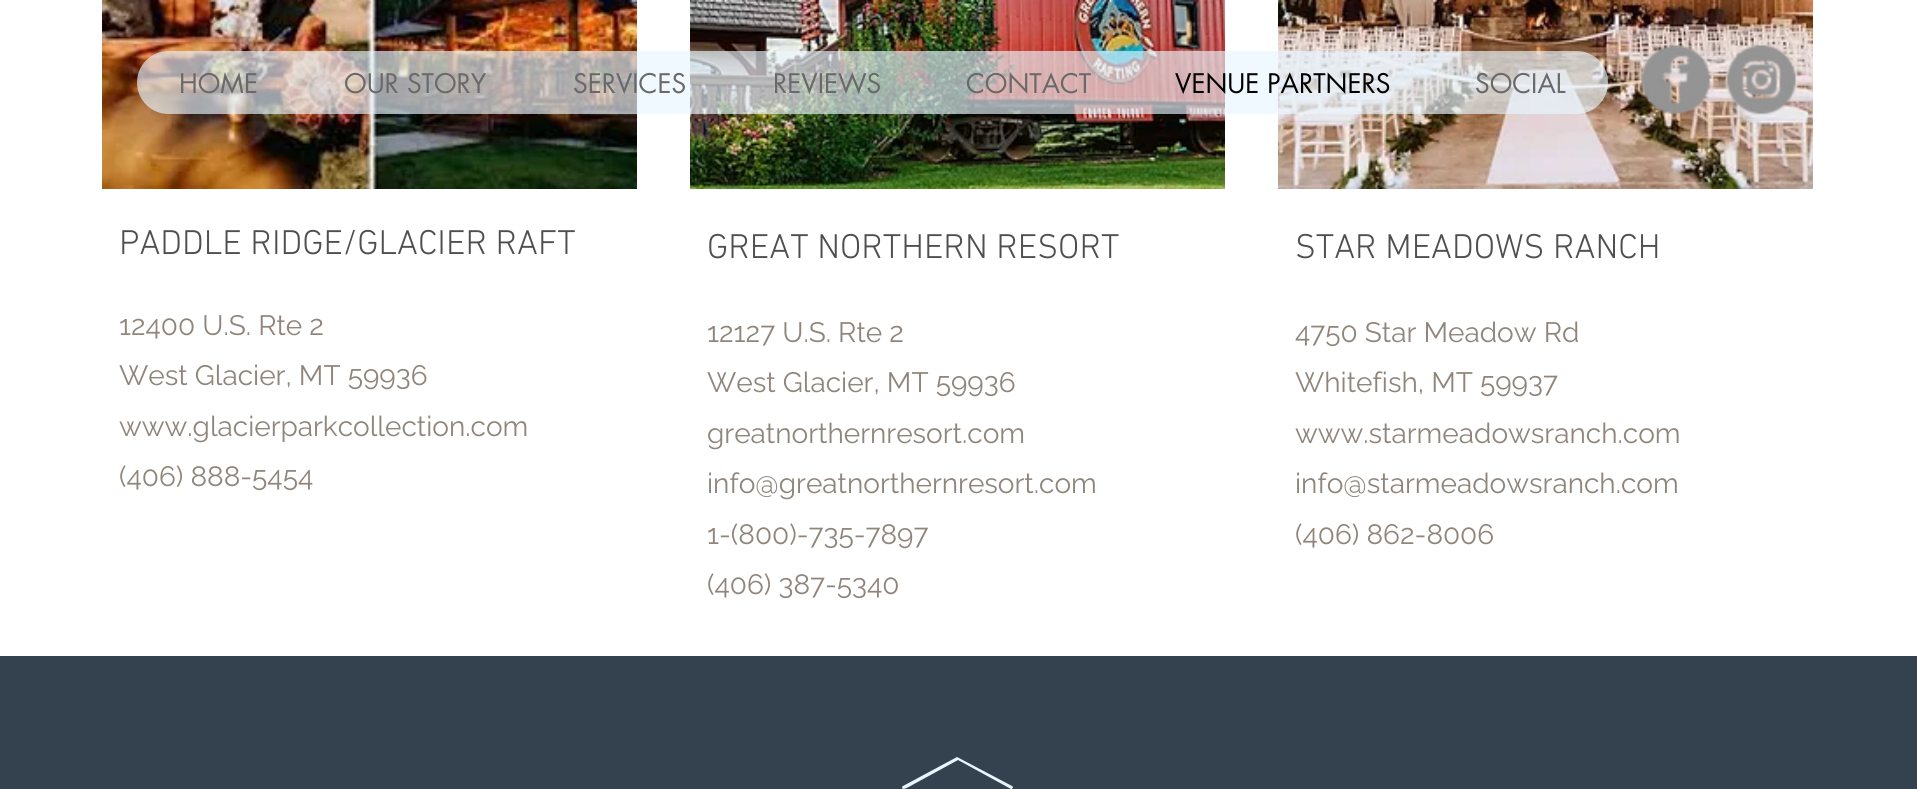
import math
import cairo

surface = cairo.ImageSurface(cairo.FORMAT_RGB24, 1917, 789)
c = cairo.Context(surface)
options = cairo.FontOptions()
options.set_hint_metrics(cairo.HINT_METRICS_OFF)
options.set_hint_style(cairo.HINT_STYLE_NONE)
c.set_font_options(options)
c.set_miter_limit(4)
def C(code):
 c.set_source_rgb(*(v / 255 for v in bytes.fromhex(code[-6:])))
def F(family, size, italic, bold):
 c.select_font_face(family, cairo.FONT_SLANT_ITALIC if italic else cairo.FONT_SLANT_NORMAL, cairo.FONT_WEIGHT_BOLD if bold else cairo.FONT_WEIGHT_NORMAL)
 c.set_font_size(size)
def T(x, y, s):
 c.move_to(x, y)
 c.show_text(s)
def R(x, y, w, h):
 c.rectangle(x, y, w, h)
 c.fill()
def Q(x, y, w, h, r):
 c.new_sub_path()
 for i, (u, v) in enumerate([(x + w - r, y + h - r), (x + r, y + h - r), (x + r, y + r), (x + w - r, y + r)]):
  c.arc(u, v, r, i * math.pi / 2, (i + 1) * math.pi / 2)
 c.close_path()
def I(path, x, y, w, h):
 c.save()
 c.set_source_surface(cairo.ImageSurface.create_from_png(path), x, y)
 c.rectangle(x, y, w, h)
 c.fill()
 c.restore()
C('ffffff')
c.paint()
I('3.png',102,0,535,189)
I('4.png',690,0,535,189)
I('5.png',1278,0,535,189)
c.set_source_rgba(0.91,0.965,1,0.65)
Q(137,51,1471,63,31.5)
c.fill()
F('futura',26.25,0,0)
C('696969')
T(179,93,'HOME')
T(344,93,'OUR STORY')
T(573,93,'SERVICES')
T(773,93,'REVIEWS')
T(966,93,'CONTACT')
C('000000')
T(1175,93,'VENUE PARTNERS')
C('696969')
T(1475,93,'SOCIAL')
I('1.png',1641,45,70,70)
I('2.png',1726,45,70,70)
F('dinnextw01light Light',35,0,0)
C('4f4f4f')
T(119,254,'PADDLE RIDGE/GLACIER RAFT')
F('Raleway',28,0,0)
C('8f857b')
T(119,335,'12400 U.S. Rte 2')
T(119,385,'West Glacier, MT 59936')
T(119,436,'www.glacierparkcollection.com')
T(119,486,'(406) 888-5454')
F('dinnextw01light Light',35,0,0)
C('4f4f4f')
T(707,258,'GREAT NORTHERN RESORT')
F('Raleway',28,0,0)
C('8f857b')
T(707,342,'12127 U.S. Rte 2')
T(707,392,'West Glacier, MT 59936')
T(707,443,'greatnorthernresort.com')
T(707,493,'info@greatnorthernresort.com')
T(707,544,'1-(800)-735-7897')
T(707,594,'(406) 387-5340')
F('dinnextw01light Light',35,0,0)
C('4f4f4f')
T(1295,258,'STAR MEADOWS RANCH')
F('Raleway',28,0,0)
C('8f857b')
T(1295,342,'4750 Star Meadow Rd')
T(1295,392,'Whitefish, MT 59937')
T(1295,443,'www.starmeadowsranch.com')
T(1295,493,'info@starmeadowsranch.com')
T(1295,544,'(406) 862-8006')
C('33424e')
R(0,656,1917,133)
C('e8f6ff')
c.new_path()
c.move_to(902,787)
c.line_to(903,786)
c.line_to(957,757)
c.line_to(1012,786)
c.line_to(1013,787)
c.curve_to(1013,788,1012,789,1011,789)
c.line_to(958,760)
c.line_to(914,784)
c.curve_to(907,788,902,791,902,787)
c.close_path()
c.fill()
surface.write_to_png('o.png')
